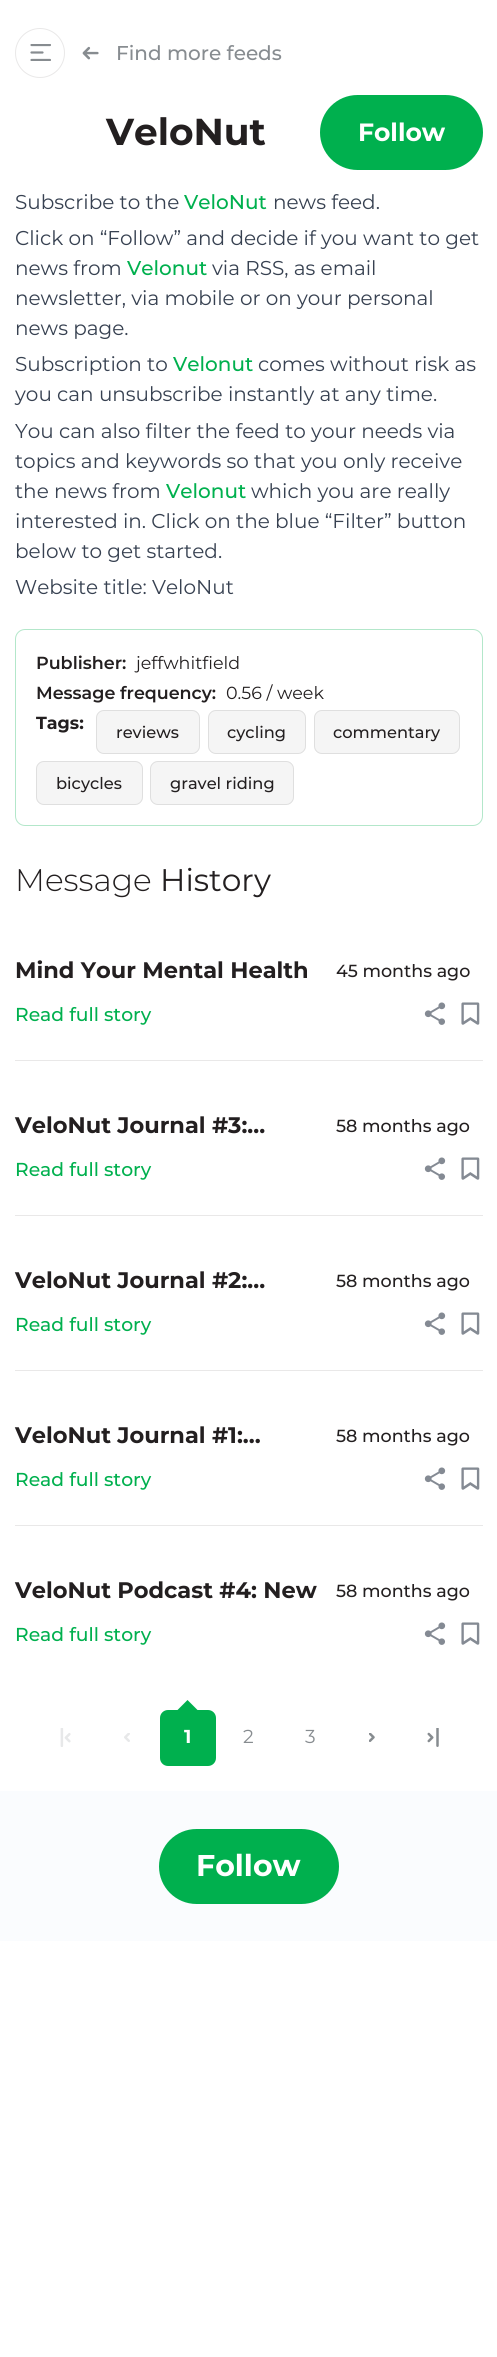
import math
import cairo

surface = cairo.ImageSurface(cairo.FORMAT_RGB24, 497, 2357)
c = cairo.Context(surface)
options = cairo.FontOptions()
options.set_hint_metrics(cairo.HINT_METRICS_OFF)
options.set_hint_style(cairo.HINT_STYLE_NONE)
c.set_font_options(options)
c.set_miter_limit(4)
def C(code):
 c.set_source_rgb(*(v / 255 for v in bytes.fromhex(code[-6:])))
def F(family, size, italic, bold):
 c.select_font_face(family, cairo.FONT_SLANT_ITALIC if italic else cairo.FONT_SLANT_NORMAL, cairo.FONT_WEIGHT_BOLD if bold else cairo.FONT_WEIGHT_NORMAL)
 c.set_font_size(size)
def T(x, y, s):
 c.move_to(x, y)
 c.show_text(s)
def R(x, y, w, h):
 c.rectangle(x, y, w, h)
 c.fill()
def Q(x, y, w, h, r):
 c.new_sub_path()
 for i, (u, v) in enumerate([(x + w - r, y + h - r), (x + r, y + h - r), (x + r, y + r), (x + w - r, y + r)]):
  c.arc(u, v, r, i * math.pi / 2, (i + 1) * math.pi / 2)
 c.close_path()
def I(path, x, y, w, h):
 c.save()
 c.set_source_surface(cairo.ImageSurface.create_from_png(path), x, y)
 c.rectangle(x, y, w, h)
 c.fill()
 c.restore()
C('ffffff')
c.paint()
c.arc(40,53,24.5,0,2 * math.pi)
C('e9e8e8')
c.set_line_width(1)
c.stroke()
c.save()
c.rectangle(30,44,21,17)
c.clip()
c.new_path()
c.move_to(50,45)
c.line_to(31.5,45)
c.move_to(50,60)
c.line_to(31.5,60)
C('878c90')
c.set_line_width(2.2)
c.set_line_cap(cairo.LINE_CAP_ROUND)
c.stroke()
c.restore()
c.new_path()
c.move_to(42.5,52.5)
c.line_to(31.5,52.5)
C('878c90')
c.set_line_width(2.2)
c.set_line_cap(cairo.LINE_CAP_ROUND)
c.stroke()
I('1.png',82,46,17,14)
F('Montserrat Medium',20,0,0)
T(116,60,'Find more feeds')
F('Montserrat',37.5,0,1)
C('231f20')
T(106,145,'VeloNut')
C('00b04e')
Q(320,95,163,75,37.5)
c.fill()
F('Montserrat',25,0,1)
C('ffffff')
T(358,141,'Follow')
F('Montserrat',20,0,0)
C('374151')
T(15,209,'Subscribe to the')
F('Montserrat Medium',20,0,0)
C('00b04e')
T(184,209,'VeloNut')
F('Montserrat',20,0,0)
C('374151')
T(273,209,'news feed.')
T(15,245,'Click on “Follow” and decide if you want to get')
T(15,275,'news from')
F('Montserrat Medium',20,0,0)
C('00b04e')
T(127,275,'Velonut')
F('Montserrat',20,0,0)
C('374151')
T(212,275,'via RSS, as email')
T(15,305,'newsletter, via mobile or on your personal')
T(15,335,'news page.')
T(15,371,'Subscription to')
F('Montserrat Medium',20,0,0)
C('00b04e')
T(173,371,'Velonut')
F('Montserrat',20,0,0)
C('374151')
T(258,371,'comes without risk as')
T(15,401,'you can unsubscribe instantly at any time.')
T(15,438,'You can also filter the feed to your needs via')
T(15,468,'topics and keywords so that you only receive')
T(15,498,'the news from')
F('Montserrat Medium',20,0,0)
C('00b04e')
T(166,498,'Velonut')
F('Montserrat',20,0,0)
C('374151')
T(251,498,'which you are really')
T(15,528,'interested in. Click on the blue “Filter” button')
T(15,558,'below to get started.')
T(15,594,'Website title: VeloNut')
Q(15.5,629.5,467,196,9.5)
C('b3e7ca')
c.set_line_width(1)
c.set_line_cap(cairo.LINE_CAP_BUTT)
c.stroke()
F('Montserrat SemiBold',17.5,0,0)
C('231f20')
T(36,669,'Publisher:')
F('Montserrat',17.5,0,0)
T(136,669,'jeffwhitfield')
F('Montserrat SemiBold',17.5,0,0)
T(36,699,'Message frequency:')
F('Montserrat',17.5,0,0)
T(226,699,'0.56 / week')
F('Montserrat',17.5,0,1)
T(36,729,'Tags:')
C('f5f5f5')
Q(96,710,104,44,8)
c.fill()
Q(96.5,710.5,103,43,7.5)
c.set_source_rgba(0.749,0.749,0.749,0.4)
c.stroke()
F('Montserrat Medium',16.25,0,0)
C('231f20')
T(116,738,'reviews')
C('f5f5f5')
Q(208,710,98,44,8)
c.fill()
Q(208.5,710.5,97,43,7.5)
c.set_source_rgba(0.749,0.749,0.749,0.4)
c.stroke()
C('231f20')
T(227,738,'cycling')
C('f5f5f5')
Q(314,710,146,44,8)
c.fill()
Q(314.5,710.5,145,43,7.5)
c.set_source_rgba(0.749,0.749,0.749,0.4)
c.stroke()
C('231f20')
T(333,738,'commentary')
C('f5f5f5')
Q(36,761,107,44,8)
c.fill()
Q(36.5,761.5,106,43,7.5)
c.set_source_rgba(0.749,0.749,0.749,0.4)
c.stroke()
C('231f20')
T(56,789,'bicycles')
C('f5f5f5')
Q(150,761,144,44,8)
c.fill()
Q(150.5,761.5,143,43,7.5)
c.set_source_rgba(0.749,0.749,0.749,0.4)
c.stroke()
C('231f20')
T(170,789,'gravel riding')
F('Montserrat Light',31.25,0,0)
T(15,891,'Message')
F('Montserrat',31.25,0,0)
T(160,891,'History')
C('e9e8e8')
R(15,1060,468,1)
F('Montserrat',22.5,0,1)
C('231f20')
T(15,978,'Mind Your Mental Health')
F('Montserrat Medium',17.5,0,0)
T(336,977,'45 months ago')
F('Montserrat Medium',18.75,0,0)
C('00b04e')
T(15,1021,'Read full story')
I('2.png',424,1002,22,23)
I('3.png',461,1002,19,23)
C('e9e8e8')
R(15,1215,468,1)
F('Montserrat',22.5,0,1)
C('231f20')
T(15,1133,'VeloNut Journal #3:…')
F('Montserrat Medium',17.5,0,0)
T(336,1132,'58 months ago')
F('Montserrat Medium',18.75,0,0)
C('00b04e')
T(15,1176,'Read full story')
I('2.png',424,1157,22,23)
I('3.png',461,1157,19,23)
C('e9e8e8')
R(15,1370,468,1)
F('Montserrat',22.5,0,1)
C('231f20')
T(15,1288,'VeloNut Journal #2:…')
F('Montserrat Medium',17.5,0,0)
T(336,1287,'58 months ago')
F('Montserrat Medium',18.75,0,0)
C('00b04e')
T(15,1331,'Read full story')
I('2.png',424,1312,22,23)
I('3.png',461,1312,19,23)
C('e9e8e8')
R(15,1525,468,1)
F('Montserrat',22.5,0,1)
C('231f20')
T(15,1443,'VeloNut Journal #1:…')
F('Montserrat Medium',17.5,0,0)
T(336,1442,'58 months ago')
F('Montserrat Medium',18.75,0,0)
C('00b04e')
T(15,1486,'Read full story')
I('2.png',424,1467,22,23)
I('3.png',461,1467,19,23)
F('Montserrat',22.5,0,1)
C('231f20')
T(15,1598,'VeloNut Podcast #4: New')
F('Montserrat Medium',17.5,0,0)
T(336,1597,'58 months ago')
F('Montserrat Medium',18.75,0,0)
C('00b04e')
T(15,1641,'Read full story')
I('2.png',424,1622,22,23)
I('3.png',461,1622,19,23)
I('4.png',60,1728,11,19)
I('5.png',124,1733,6,9)
Q(160,1710,56,56,8)
c.fill()
c.new_path()
c.move_to(197.5,1710)
c.line_to(177.5,1710)
c.line_to(187.5,1700)
c.close_path()
c.fill()
F('Montserrat',18.75,0,1)
C('ffffff')
T(184,1743,'1')
F('Montserrat',18.75,0,0)
C('878c90')
T(243,1743,'2')
T(305,1743,'3')
I('6.png',369,1733,6,9)
I('7.png',427,1728,12,19)
C('fafcfe')
R(0,1791,497,150)
C('00b04e')
Q(159,1829,180,75,37.5)
c.fill()
F('Montserrat',30,0,1)
C('ffffff')
T(196,1876,'Follow')
surface.write_to_png('o.png')
